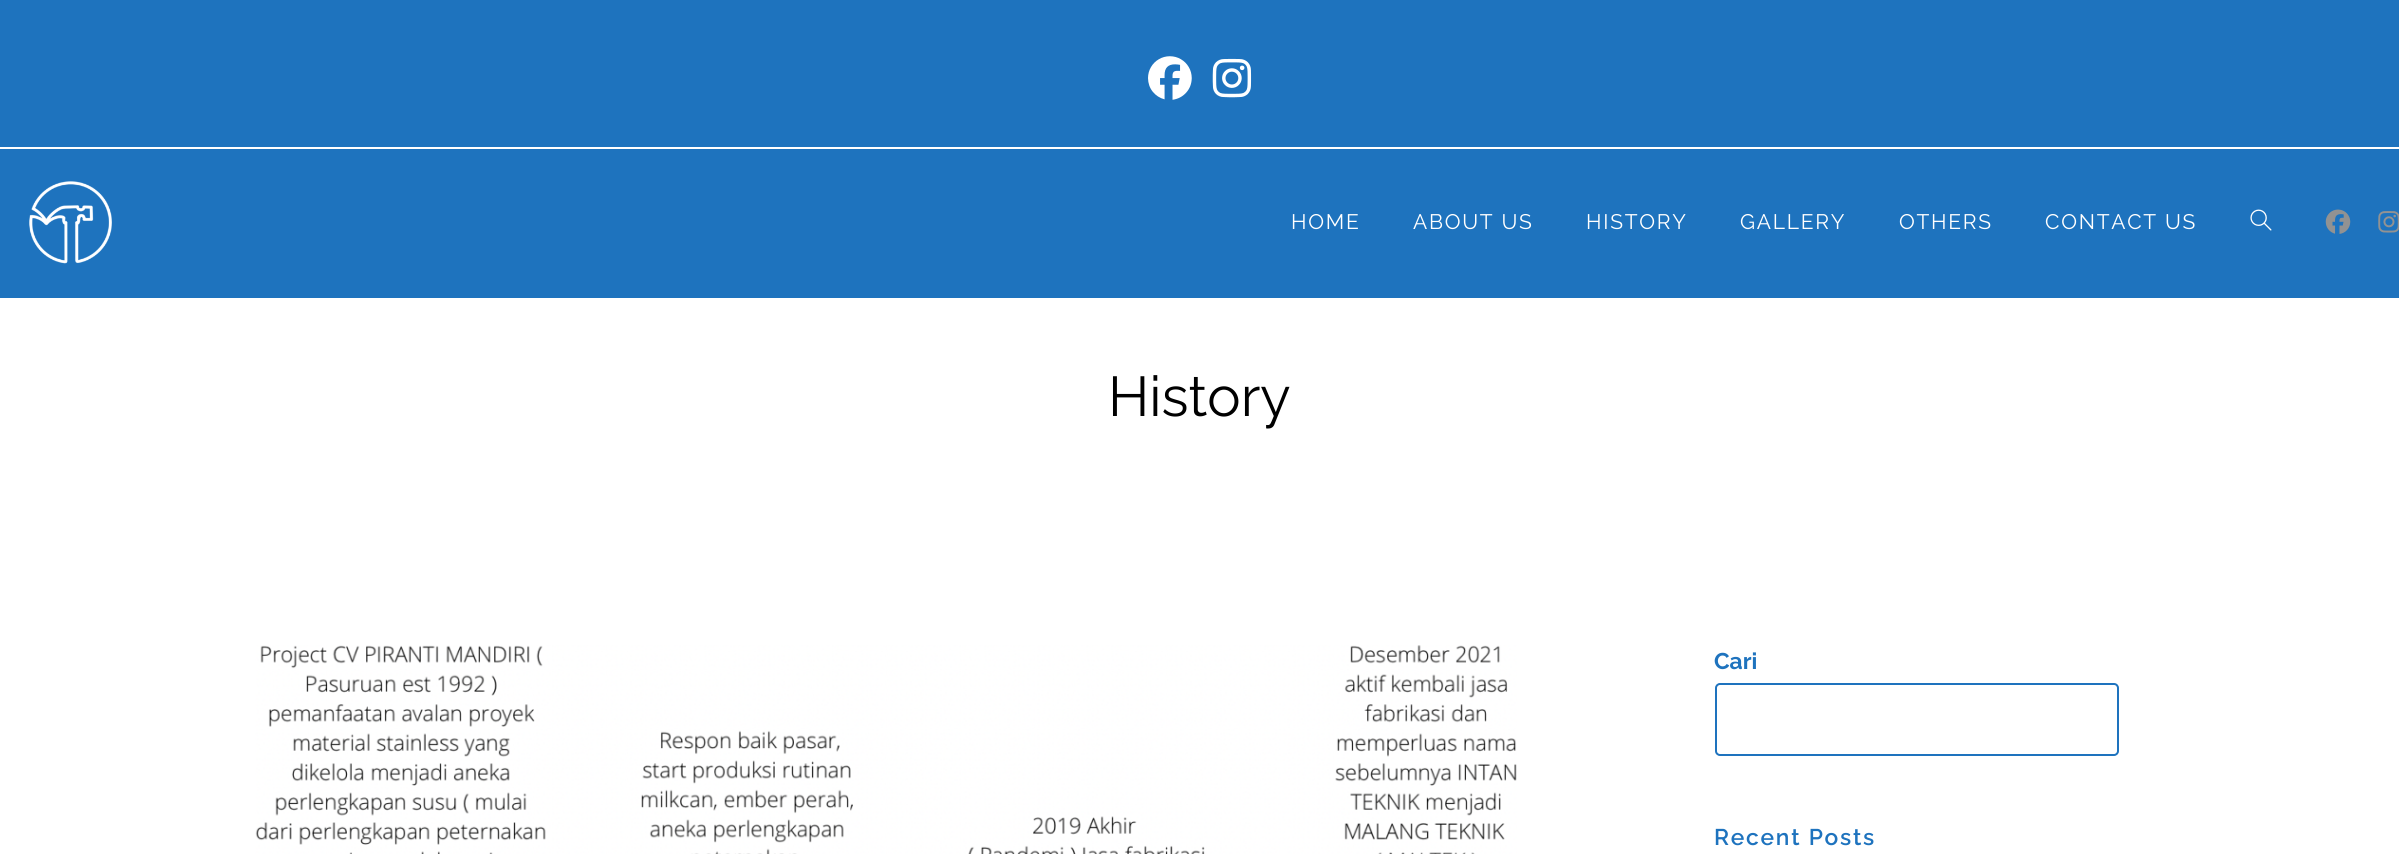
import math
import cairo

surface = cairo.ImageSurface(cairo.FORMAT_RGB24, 2399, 854)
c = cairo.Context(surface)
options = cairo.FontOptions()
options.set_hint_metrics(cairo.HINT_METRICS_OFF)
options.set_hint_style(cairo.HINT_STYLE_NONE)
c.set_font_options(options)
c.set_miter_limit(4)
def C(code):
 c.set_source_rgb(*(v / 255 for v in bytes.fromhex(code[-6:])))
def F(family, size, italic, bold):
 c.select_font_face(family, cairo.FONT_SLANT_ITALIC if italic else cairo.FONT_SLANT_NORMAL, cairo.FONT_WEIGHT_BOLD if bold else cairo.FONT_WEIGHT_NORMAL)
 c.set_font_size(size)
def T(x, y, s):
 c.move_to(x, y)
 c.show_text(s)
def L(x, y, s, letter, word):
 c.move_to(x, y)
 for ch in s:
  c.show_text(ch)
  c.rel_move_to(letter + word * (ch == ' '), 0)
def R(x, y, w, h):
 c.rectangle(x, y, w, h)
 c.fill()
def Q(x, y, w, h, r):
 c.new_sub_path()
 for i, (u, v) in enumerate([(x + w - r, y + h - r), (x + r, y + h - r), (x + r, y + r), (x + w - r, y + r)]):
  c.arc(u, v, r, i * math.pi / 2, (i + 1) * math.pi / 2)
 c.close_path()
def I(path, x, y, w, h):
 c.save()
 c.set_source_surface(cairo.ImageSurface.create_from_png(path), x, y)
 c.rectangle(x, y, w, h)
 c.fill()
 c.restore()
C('ffffff')
c.paint()
C('1e73be')
R(0,0,2399,147)
I('1.png',1148,56,44,44)
I('2.png',1212,58,40,40)
R(0,149,2399,149)
I('3.png',29,181,83,83)
F('Raleway',21,0,0)
C('ffffff')
L(1291,229,'HOME',1.75,0)
L(1413,229,'ABOUT US',1.75,0)
L(1586,229,'HISTORY',1.75,0)
L(1740,229,'GALLERY',1.75,0)
L(1899,229,'OTHERS',1.75,0)
L(2045,229,'CONTACT US',1.75,0)
I('4.png',2250,209,22,22)
I('5.png',2325,209,26,25)
I('6.png',2378,211,21,22)
F('Raleway',56,0,0)
C('000000')
T(1108,416,'History')
I('7.png',255,645,1262,209)
F('Raleway',22.75,0,1)
C('1e73be')
T(1714,669,'Cari')
Q(1716,684,402,71,4)
c.stroke()
F('Raleway SemiBold',22.75,0,0)
L(1714,845,'Recent Posts',1.75,0)
surface.write_to_png('o.png')
